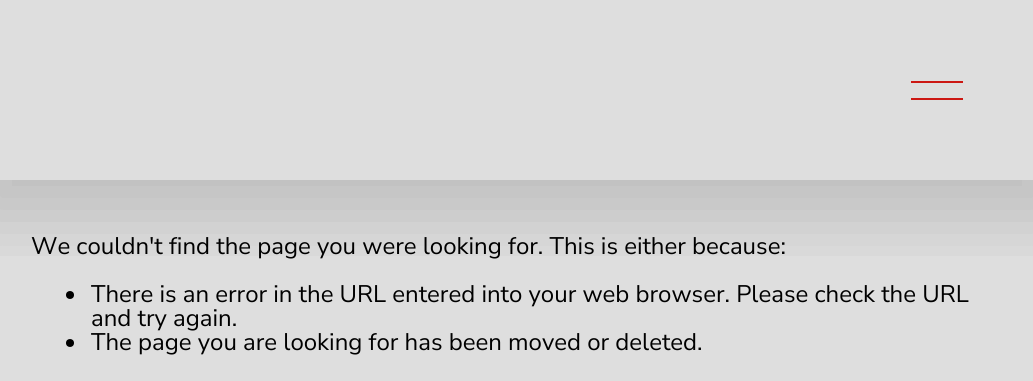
import math
import cairo

surface = cairo.ImageSurface(cairo.FORMAT_RGB24, 1033, 381)
c = cairo.Context(surface)
options = cairo.FontOptions()
options.set_hint_metrics(cairo.HINT_METRICS_OFF)
options.set_hint_style(cairo.HINT_STYLE_NONE)
c.set_font_options(options)
c.set_miter_limit(4)
def C(code):
 c.set_source_rgb(*(v / 255 for v in bytes.fromhex(code[-6:])))
def F(family, size, italic, bold):
 c.select_font_face(family, cairo.FONT_SLANT_ITALIC if italic else cairo.FONT_SLANT_NORMAL, cairo.FONT_WEIGHT_BOLD if bold else cairo.FONT_WEIGHT_NORMAL)
 c.set_font_size(size)
def T(x, y, s):
 c.move_to(x, y)
 c.show_text(s)
def R(x, y, w, h):
 c.rectangle(x, y, w, h)
 c.fill()
def Q(x, y, w, h, r):
 c.new_sub_path()
 for i, (u, v) in enumerate([(x + w - r, y + h - r), (x + r, y + h - r), (x + r, y + r), (x + w - r, y + r)]):
  c.arc(u, v, r, i * math.pi / 2, (i + 1) * math.pi / 2)
 c.close_path()
def S(x, y, w, h, r, blur, alpha):
 c.push_group_with_content(cairo.CONTENT_ALPHA)
 c.set_operator(cairo.OPERATOR_SOURCE)
 for i in range(15, -16, -2):
  e = blur * i / 6
  if min(w, h) + 2 * e > 0:
   c.set_source_rgba(0, 0, 0, alpha * math.erfc((i - 1) / 8.5) / 2)
   Q(x - e, y - e, w + 2 * e, h + 2 * e, max(0, min(r + e + blur * .6, min(w, h) / 2 + e)))
   c.fill()
 c.mask(c.pop_group())
C('dedede')
c.paint()
C('000000')
c.arc(70,295,4,0,2 * math.pi)
c.fill()
c.save()
c.rectangle(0,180,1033,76)
c.clip()
C('000000')
S(-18,0,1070,216,0,36,.15)
c.restore()
C('cc1813')
R(911,81,52,2)
R(911,98,52,2)
F('Nunito Sans',24,0,0)
C('000000')
T(31,254,'We couldn\'t find the page you were looking for. This is either because:')
T(91,302,'There is an error in the URL entered into your web browser. Please check the URL')
T(91,326,'and try again.')
c.new_path()
c.arc(70,343,4,0,2 * math.pi)
c.fill()
T(91,350,'The page you are looking for has been moved or deleted.')
surface.write_to_png('o.png')
